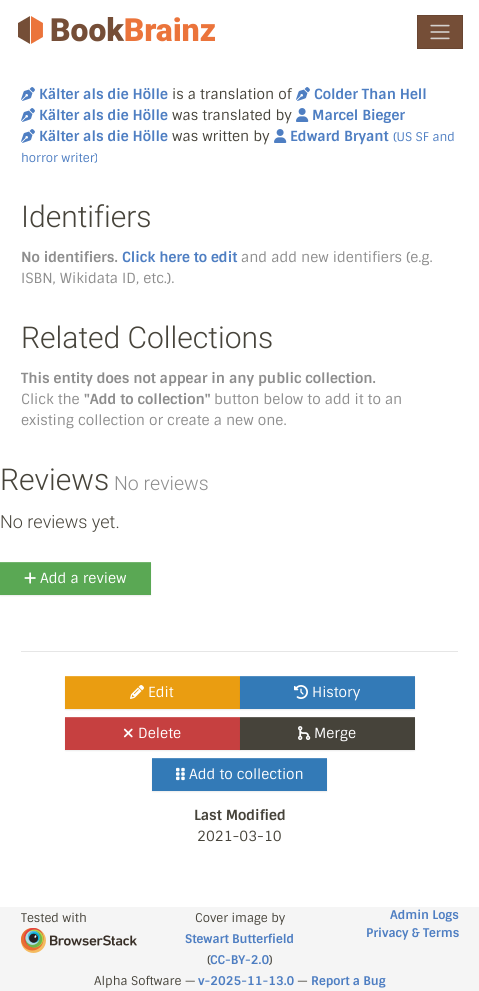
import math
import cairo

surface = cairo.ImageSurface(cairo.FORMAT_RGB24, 479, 991)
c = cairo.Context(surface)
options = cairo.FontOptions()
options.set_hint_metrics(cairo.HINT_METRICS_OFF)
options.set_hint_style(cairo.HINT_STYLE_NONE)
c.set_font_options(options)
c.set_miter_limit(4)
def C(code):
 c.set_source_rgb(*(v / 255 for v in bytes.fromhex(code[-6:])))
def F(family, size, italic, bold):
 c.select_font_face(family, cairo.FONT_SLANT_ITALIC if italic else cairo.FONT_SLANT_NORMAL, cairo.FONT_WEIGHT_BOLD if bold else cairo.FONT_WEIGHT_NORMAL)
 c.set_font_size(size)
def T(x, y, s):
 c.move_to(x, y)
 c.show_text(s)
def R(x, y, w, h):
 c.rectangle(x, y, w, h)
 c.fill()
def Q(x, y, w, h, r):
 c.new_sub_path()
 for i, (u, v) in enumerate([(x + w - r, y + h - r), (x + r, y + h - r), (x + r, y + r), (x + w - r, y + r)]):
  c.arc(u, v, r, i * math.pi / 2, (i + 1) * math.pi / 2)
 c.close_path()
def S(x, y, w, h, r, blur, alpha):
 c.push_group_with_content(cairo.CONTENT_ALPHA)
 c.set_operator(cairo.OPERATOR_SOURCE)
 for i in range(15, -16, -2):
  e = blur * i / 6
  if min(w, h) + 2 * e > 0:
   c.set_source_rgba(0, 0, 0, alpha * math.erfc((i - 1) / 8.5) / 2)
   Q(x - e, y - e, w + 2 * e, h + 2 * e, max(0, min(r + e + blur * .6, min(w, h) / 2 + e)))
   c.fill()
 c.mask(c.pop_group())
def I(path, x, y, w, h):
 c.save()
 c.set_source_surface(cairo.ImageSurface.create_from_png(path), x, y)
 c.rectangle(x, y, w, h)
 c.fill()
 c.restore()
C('ffffff')
c.paint()
I('1.png',18,16,197,28)
C('754e37')
c.rectangle(417.5,15.5,45,33)
c.fill_preserve()
C('694632')
c.set_line_width(1)
c.stroke()
I('2.png',430,24,20,16)
I('3.png',21,87,14,14)
F('Sintony',14,0,1)
C('4e7ec2')
T(39,99,'Kälter als die Hölle')
F('Sintony',14,0,0)
C('46433a')
T(172,99,'is a translation of')
I('3.png',296,87,14,14)
F('Sintony',14,0,1)
C('4e7ec2')
T(314,99,'Colder Than Hell')
I('3.png',21,108,14,14)
T(39,120,'Kälter als die Hölle')
F('Sintony',14,0,0)
C('46433a')
T(172,120,'was translated by')
I('4.png',296,108,13,14)
F('Sintony',14,0,1)
C('4e7ec2')
T(312,120,'Marcel Bieger')
I('3.png',21,129,14,14)
T(39,141,'Kälter als die Hölle')
I('4.png',274,129,13,14)
T(290,141,'Edward Bryant')
F('Sintony',12,0,0)
T(393,141,'(US SF and')
T(21,162,'horror writer)')
F('Sintony',14,0,0)
C('46433a')
T(172,141,'was written by')
F('Roboto Light',30,0,0)
T(21,227,'Identifiers')
F('Sintony',14,0,1)
C('8d8d8d')
T(21,262,'No identifiers.')
C('4e7ec2')
T(122,262,'Click here to edit')
F('Sintony',14,0,0)
C('8d8d8d')
T(241,262,'and add new identifiers (e.g.')
T(21,283,'ISBN, Wikidata ID, etc.).')
F('Roboto Light',30,0,0)
C('46433a')
T(21,348,'Related Collections')
F('Sintony',14,0,1)
C('8d8d8d')
T(21,383,'This entity does not appear in any public collection.')
F('Sintony',14,0,0)
T(21,404,'Click the')
F('Sintony',14,0,1)
T(84,404,'"Add to collection"')
F('Sintony',14,0,0)
T(214,404,'button below to add it to an')
T(21,425,'existing collection or create a new one.')
F('Roboto Light',30,0,0)
C('46433a')
T(0,490,'Reviews')
F('Roboto Light',19.5,0,0)
C('8d8d8d')
T(114,490,'No reviews')
F('Roboto Light',18,0,0)
C('46433a')
T(0,528,'No reviews yet.')
C('000000')
S(0,563,151,33,0,.5,.07)
C('5aa854')
R(0,563,151,32)
C('73b56e')
R(0,562,151,1)
I('5.png',24,572,12,12)
F('Sintony',14,0,0)
C('ffffff')
T(40,583,'Add a review')
C('e6e6e6')
R(21,651,437,1)
C('000000')
S(65,677,175,33,0,.5,.07)
C('ea9d11')
R(65,677,175,32)
C('edac35')
R(65,676,175,1)
I('6.png',130,685,14,14)
C('ffffff')
T(148,697,'Edit')
C('000000')
S(240,677,175,33,0,.5,.07)
C('337ab7')
R(240,677,175,32)
C('528ec2')
R(240,676,175,1)
I('7.png',294,685,14,14)
C('ffffff')
T(312,697,'History')
C('000000')
S(65,718,175,33,0,.5,.07)
C('c64040')
R(65,718,175,32)
C('cf5d5d')
R(65,717,175,1)
I('8.png',123,728,10,10)
C('ffffff')
T(138,738,'Delete')
C('000000')
S(240,718,175,33,0,.5,.07)
C('46433a')
R(240,718,175,32)
C('625f58')
R(240,717,175,1)
I('9.png',298,726,13,14)
C('ffffff')
T(314,738,'Merge')
C('000000')
S(152,759,175,33,0,.5,.07)
C('337ab7')
R(152,759,175,32)
C('528ec2')
R(152,758,175,1)
I('10.png',176,767,9,14)
C('ffffff')
T(189,779,'Add to collection')
F('Sintony',14,0,1)
C('46433a')
T(194,820,'Last Modified')
F('Sintony',14,0,0)
T(197,841,'2021-03-10')
C('f5f5f5')
R(0,907,479,84)
F('Sintony',12,0,0)
C('46433a')
T(21,922,'Tested with')
I('11.png',21,928,116,25)
T(195,922,'Cover image by')
F('Sintony',12,0,1)
C('4e7ec2')
T(185,943,'Stewart Butterfield')
F('Sintony',12,0,0)
C('46433a')
T(207,964,'(')
F('Sintony',12,0,1)
C('4e7ec2')
T(210,964,'CC-BY-2.0')
F('Sintony',12,0,0)
C('46433a')
T(269,964,')')
F('Sintony',12,0,1)
C('4e7ec2')
T(390,919,'Admin Logs')
T(366,937,'Privacy & Terms')
F('Sintony',12,0,0)
C('46433a')
T(94,985,'Alpha Software —')
F('Sintony',12,0,1)
C('4e7ec2')
T(198,985,'v-2025-11-13.0')
F('Sintony',12,0,0)
C('46433a')
T(297,985,'—')
F('Sintony',12,0,1)
C('4e7ec2')
T(311,985,'Report a Bug')
surface.write_to_png('o.png')
